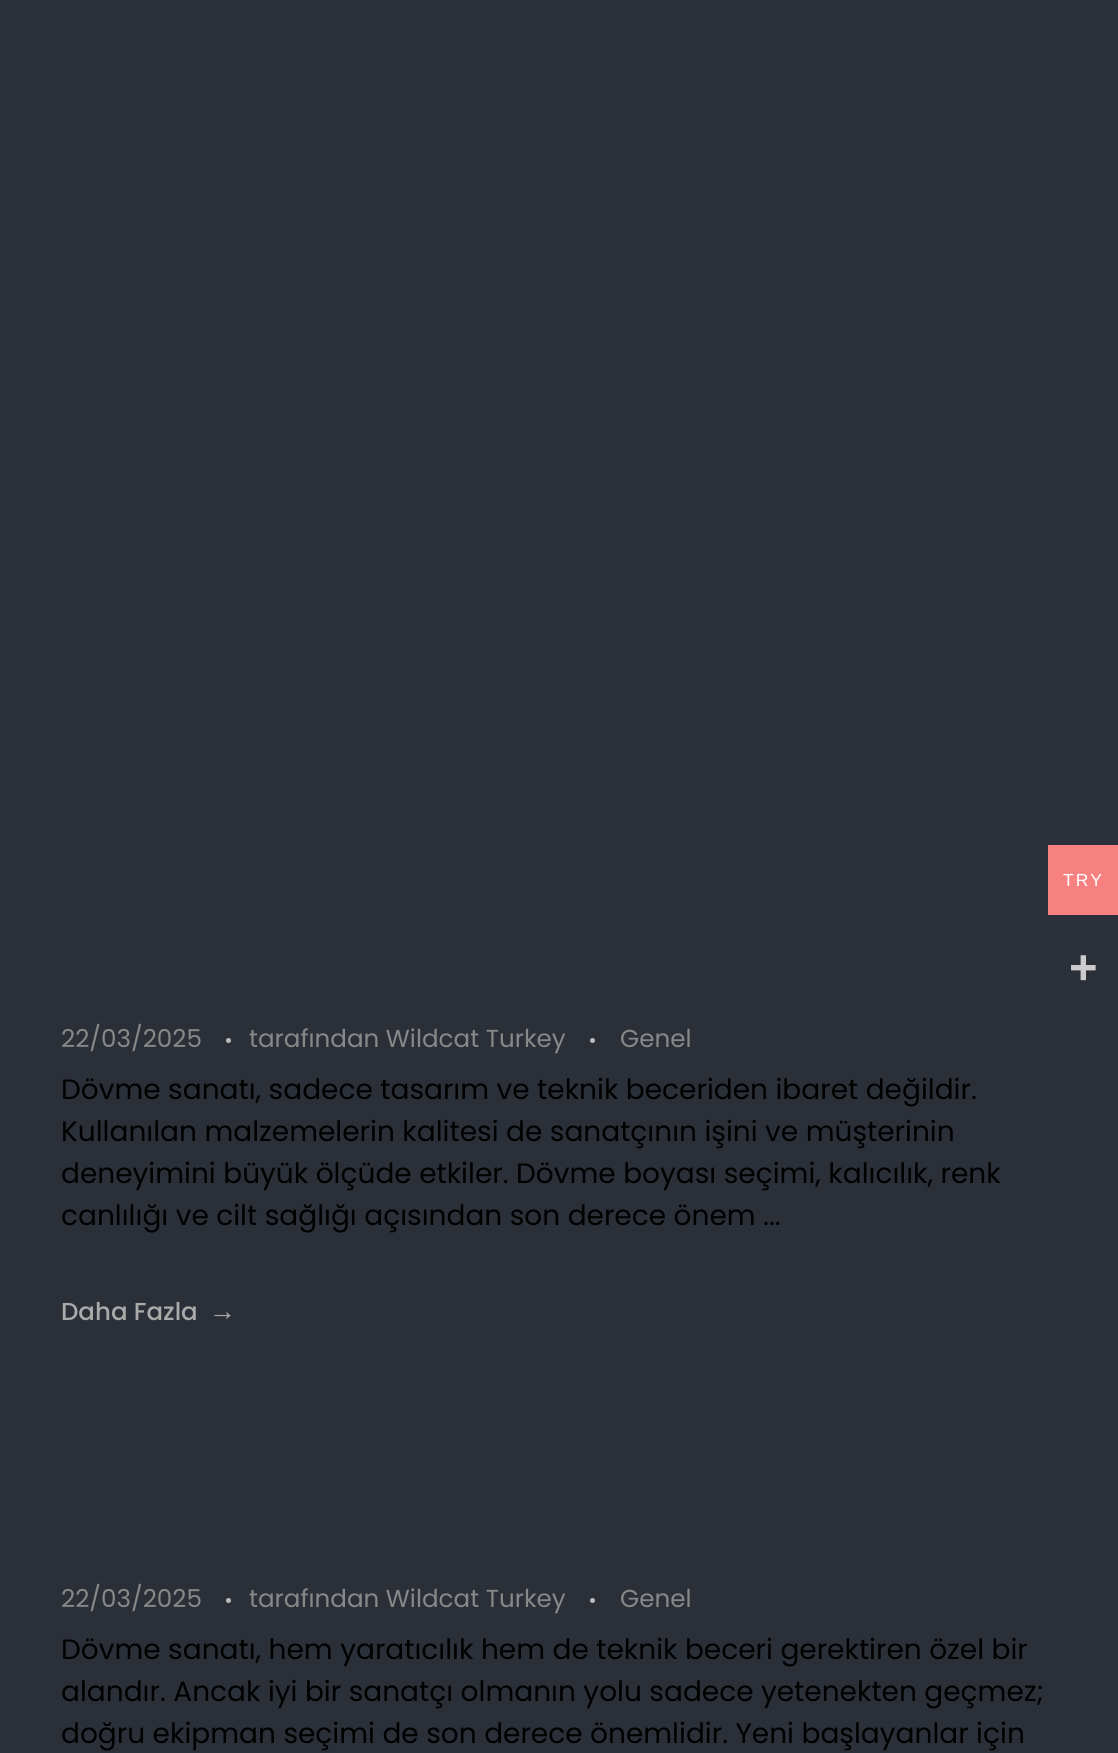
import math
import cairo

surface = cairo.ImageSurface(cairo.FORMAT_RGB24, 1118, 1753)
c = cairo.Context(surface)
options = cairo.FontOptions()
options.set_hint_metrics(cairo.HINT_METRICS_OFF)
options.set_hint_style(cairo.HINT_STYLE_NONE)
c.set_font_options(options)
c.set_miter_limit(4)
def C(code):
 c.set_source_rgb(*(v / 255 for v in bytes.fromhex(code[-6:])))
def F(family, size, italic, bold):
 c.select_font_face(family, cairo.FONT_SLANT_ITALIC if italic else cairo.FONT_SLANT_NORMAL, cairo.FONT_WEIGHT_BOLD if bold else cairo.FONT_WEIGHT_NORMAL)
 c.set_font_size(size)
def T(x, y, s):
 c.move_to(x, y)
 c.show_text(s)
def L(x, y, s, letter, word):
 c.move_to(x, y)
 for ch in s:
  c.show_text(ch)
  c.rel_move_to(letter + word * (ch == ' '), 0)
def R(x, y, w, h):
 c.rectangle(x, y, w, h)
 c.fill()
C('2b3038')
c.paint()
C('f78080')
R(1048,845,70,70)
F('Liberation Sans',17.5,0,0)
C('ffffff')
L(1063,886,'TRY',2,0)
F('Liberation Sans',49,0,1)
C('cccccc')
T(1069,984,'+')
F('Poppins',24.6,0,0)
C('888888')
T(61,1047,'22/03/2025')
C('bbbbbb')
c.new_path()
c.arc(228.5,1040.5,2.5,0,2 * math.pi)
c.fill()
C('888888')
T(249,1047,'tarafından Wildcat Turkey')
C('bbbbbb')
c.new_path()
c.arc(592.5,1040.5,2.5,0,2 * math.pi)
c.fill()
C('888888')
T(620,1047,'Genel')
F('Poppins',28,0,0)
C('000000')
T(61,1099,'Dövme sanatı, sadece tasarım ve teknik beceriden ibaret değildir.')
T(61,1141,'Kullanılan malzemelerin kalitesi de sanatçının işini ve müşterinin')
T(61,1183,'deneyimini büyük ölçüde etkiler. Dövme boyası seçimi, kalıcılık, renk')
T(61,1225,'canlılığı ve cilt sağlığı açısından son derece önem ...')
F('Poppins Medium',24.5,0,0)
C('aaaaaa')
T(61,1320,'Daha Fazla')
F('Liberation Sans',27,0,0)
T(209,1320,'→')
F('Poppins',24.6,0,0)
C('888888')
T(61,1607,'22/03/2025')
C('bbbbbb')
c.new_path()
c.arc(228.5,1600.5,2.5,0,2 * math.pi)
c.fill()
C('888888')
T(249,1607,'tarafından Wildcat Turkey')
C('bbbbbb')
c.new_path()
c.arc(592.5,1600.5,2.5,0,2 * math.pi)
c.fill()
C('888888')
T(620,1607,'Genel')
F('Poppins',28,0,0)
C('000000')
T(61,1659,'Dövme sanatı, hem yaratıcılık hem de teknik beceri gerektiren özel bir')
T(61,1701,'alandır. Ancak iyi bir sanatçı olmanın yolu sadece yetenekten geçmez;')
T(61,1743,'doğru ekipman seçimi de son derece önemlidir. Yeni başlayanlar için')
surface.write_to_png('o.png')
